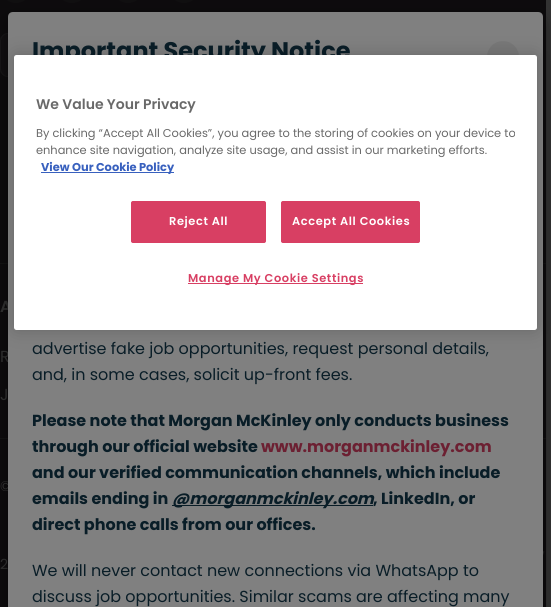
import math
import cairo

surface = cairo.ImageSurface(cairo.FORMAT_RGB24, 551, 607)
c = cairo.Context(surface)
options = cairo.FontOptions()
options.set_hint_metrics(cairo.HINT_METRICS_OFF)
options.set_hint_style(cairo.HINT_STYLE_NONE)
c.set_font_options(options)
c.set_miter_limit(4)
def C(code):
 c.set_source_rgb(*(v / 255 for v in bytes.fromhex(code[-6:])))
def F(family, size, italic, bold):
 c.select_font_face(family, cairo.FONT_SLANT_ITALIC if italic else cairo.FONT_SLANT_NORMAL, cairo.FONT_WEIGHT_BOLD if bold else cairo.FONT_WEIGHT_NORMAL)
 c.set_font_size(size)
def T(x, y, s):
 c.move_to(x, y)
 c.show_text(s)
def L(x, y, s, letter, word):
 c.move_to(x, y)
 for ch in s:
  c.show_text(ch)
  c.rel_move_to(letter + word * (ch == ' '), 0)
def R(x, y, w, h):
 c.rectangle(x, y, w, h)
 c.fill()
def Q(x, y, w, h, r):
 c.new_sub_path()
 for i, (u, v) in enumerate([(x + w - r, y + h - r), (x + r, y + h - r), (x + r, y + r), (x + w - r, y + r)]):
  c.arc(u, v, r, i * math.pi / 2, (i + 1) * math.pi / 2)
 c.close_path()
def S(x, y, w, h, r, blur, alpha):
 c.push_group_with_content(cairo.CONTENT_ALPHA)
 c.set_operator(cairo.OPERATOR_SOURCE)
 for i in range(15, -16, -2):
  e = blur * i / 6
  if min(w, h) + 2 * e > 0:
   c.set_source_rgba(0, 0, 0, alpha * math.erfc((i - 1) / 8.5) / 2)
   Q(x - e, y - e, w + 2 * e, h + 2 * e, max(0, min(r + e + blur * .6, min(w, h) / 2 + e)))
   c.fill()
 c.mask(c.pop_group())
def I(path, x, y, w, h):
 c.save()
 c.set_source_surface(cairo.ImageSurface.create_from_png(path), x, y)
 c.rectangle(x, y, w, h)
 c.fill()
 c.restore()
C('333333')
c.paint()
C('0d0b0d')
R(0,0,546,607)
C('141314')
R(0,263,546,1)
C('100f10')
Q(0,-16,32,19,16)
c.fill()
Q(56,-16,32,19,16)
c.fill()
Q(112,-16,32,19,16)
c.fill()
Q(168,-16,32,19,16)
c.fill()
C('110f11')
Q(0,33,222,44,8)
c.fill()
Q(.5,33.5,221,43,7.5)
c.set_source_rgba(0.2,0.2,0.2,0.2)
c.set_line_width(1)
c.stroke()
F('Poppins SemiBold',16,0,0)
C('333333')
T(0,312,'A')
F('Poppins',16,0,0)
T(0,362,'R')
T(0,400,'J')
C('141314')
R(0,438,546,1)
F('Poppins',14,0,0)
C('333333')
T(0,491,'©')
T(0,569,'2')
I('1.png',543,551,2,4)
C('000000')
S(8,20,535,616,5,8,.5)
C('808080')
c.new_path()
c.move_to(13,12)
c.line_to(538,12)
c.curve_to(541,12,543,14,543,17)
c.line_to(543,607)
c.line_to(8,607)
c.line_to(8,17)
c.curve_to(8,14,10,12,13,12)
c.close_path()
c.fill()
F('Poppins',24,0,1)
C('091d27')
T(32,59,'Important Security Notice')
C('787878')
c.new_path()
c.arc(503,57,16,0,2 * math.pi)
c.fill()
F('Poppins',16,0,0)
C('091d27')
T(32,354,'advertise fake job opportunities, request personal details,')
T(32,380,'and, in some cases, solicit up-front fees.')
F('Poppins',16,0,1)
T(32,426,'Please note that Morgan McKinley only conducts business')
T(32,452,'through our official website')
C('6c2032')
T(261,452,'www.morganmckinley.com')
C('091d27')
T(32,478,'and our verified communication channels, which include')
T(32,504,'emails ending in')
R(172,505,201,1)
F('Poppins',16,1,1)
T(172,504,'@morganmckinley.com')
F('Poppins',16,0,1)
T(373,504,', LinkedIn, or')
T(32,530,'direct phone calls from our offices.')
F('Poppins',16,0,0)
T(32,576,'We will never contact new connections via WhatsApp to')
T(32,602,'discuss job opportunities. Similar scams are affecting many')
C('000000')
S(14,55,523,275,2.5,9,.2)
C('ffffff')
Q(14,55,523,275,2.5)
c.fill()
F('Poppins SemiBold',14,0,0)
C('696969')
T(36,109,'We Value Your Privacy')
F('Poppins',11.4,0,0)
T(36,137,'By clicking “Accept All Cookies”, you agree to the storing of cookies on your device to')
T(36,154,'enhance site navigation, analyze site usage, and assist in our marketing efforts.')
C('3860be')
R(41,172,133,1)
F('Poppins',11.4,0,1)
T(41,171,'View Our Cookie Policy')
C('d83f63')
Q(131.5,201.5,134,41,1.5)
c.fill_preserve()
c.stroke()
F('Poppins SemiBold',11.4,0,0)
C('ffffff')
L(169,225,'Reject All',.6,0)
C('d83f63')
Q(281.5,201.5,138,41,1.5)
c.fill_preserve()
c.stroke()
C('ffffff')
L(292,225,'Accept All Cookies',.6,0)
C('d83f63')
R(188,283,175,1)
L(188,282,'Manage My Cookie Settings',.6,0)
surface.write_to_png('o.png')
